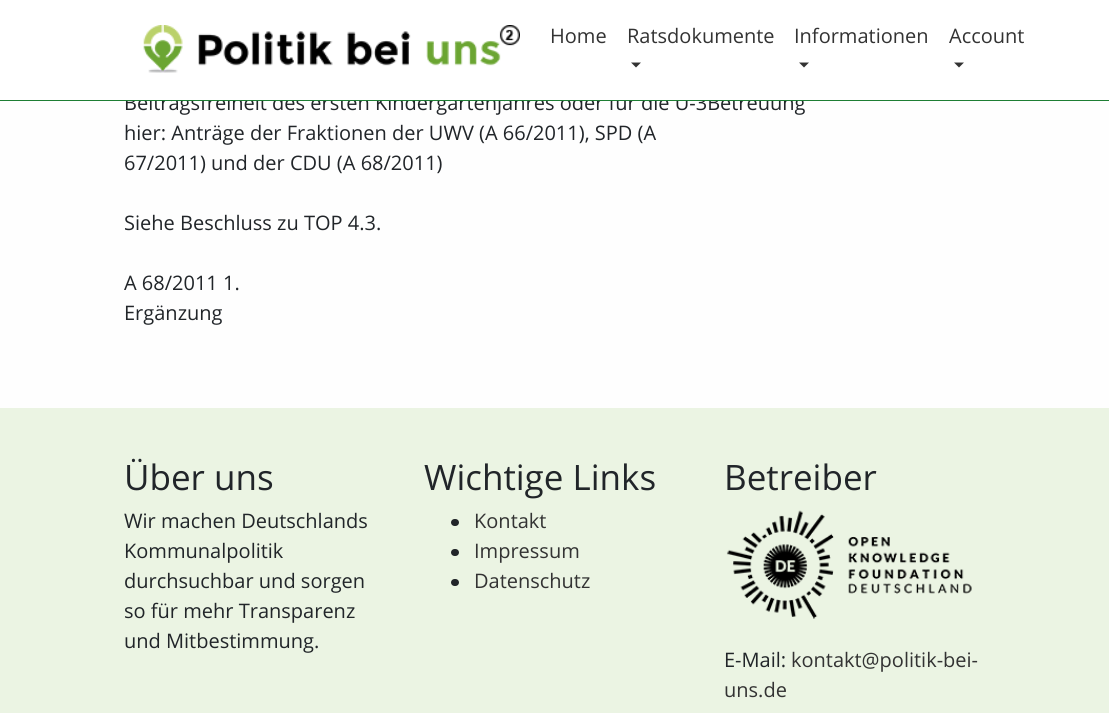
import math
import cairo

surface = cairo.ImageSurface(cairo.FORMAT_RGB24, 1109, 713)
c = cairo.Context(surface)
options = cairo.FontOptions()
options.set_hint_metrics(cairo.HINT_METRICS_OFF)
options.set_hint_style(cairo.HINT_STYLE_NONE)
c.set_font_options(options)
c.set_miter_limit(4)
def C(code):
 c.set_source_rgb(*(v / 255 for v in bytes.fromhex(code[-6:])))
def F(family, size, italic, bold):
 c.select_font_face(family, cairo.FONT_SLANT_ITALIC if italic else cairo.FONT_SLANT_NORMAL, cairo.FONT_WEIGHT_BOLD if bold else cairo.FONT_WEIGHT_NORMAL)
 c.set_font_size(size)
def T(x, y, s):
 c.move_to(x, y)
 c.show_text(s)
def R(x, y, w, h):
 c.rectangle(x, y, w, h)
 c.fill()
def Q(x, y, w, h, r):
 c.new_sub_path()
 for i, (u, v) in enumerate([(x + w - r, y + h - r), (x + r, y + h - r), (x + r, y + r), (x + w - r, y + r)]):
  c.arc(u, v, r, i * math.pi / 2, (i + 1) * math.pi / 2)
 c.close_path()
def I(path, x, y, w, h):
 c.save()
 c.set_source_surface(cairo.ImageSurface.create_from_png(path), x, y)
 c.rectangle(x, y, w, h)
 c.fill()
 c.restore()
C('ebf4e3')
c.paint()
C('fefefe')
R(0,101,1109,307)
F('Open Sans',20,0,0)
C('212529')
T(124,110,'Beitragsfreiheit des ersten Kindergartenjahres oder für die U-3Betreuung')
C('ffffff')
R(0,0,1109,100)
C('1e7e34')
R(0,100,1109,1)
I('1.png',143,25,377,48)
C('333333')
T(550,43,'Home')
T(627,43,'Ratsdokumente')
c.new_path()
c.move_to(631,62.5)
c.line_to(641,62.5)
c.line_to(636,67.5)
c.close_path()
c.fill()
T(794,43,'Informationen')
c.new_path()
c.move_to(799,62.5)
c.line_to(809,62.5)
c.line_to(804,67.5)
c.close_path()
c.fill()
T(949,43,'Account')
c.new_path()
c.move_to(954,62.5)
c.line_to(964,62.5)
c.line_to(959,67.5)
c.close_path()
c.fill()
C('212529')
T(124,140,'hier: Anträge der Fraktionen der UWV (A 66/2011), SPD (A')
T(124,170,'67/2011) und der CDU (A 68/2011)')
T(124,230,'Siehe Beschluss zu TOP 4.3.')
T(124,290,'A 68/2011 1.')
T(124,320,'Ergänzung')
F('Open Sans',35,0,0)
T(124,490,'Über uns')
F('Open Sans',20,0,0)
T(124,528,'Wir machen Deutschlands')
T(124,558,'Kommunalpolitik')
T(124,588,'durchsuchbar und sorgen')
T(124,618,'so für mehr Transparenz')
T(124,648,'und Mitbestimmung.')
F('Open Sans',35,0,0)
T(424,490,'Wichtige Links')
Q(451,519,8,7,3.5)
c.fill()
F('Open Sans',20,0,0)
C('333333')
T(474,528,'Kontakt')
C('212529')
Q(451,549,8,7,3.5)
c.fill()
C('333333')
T(474,558,'Impressum')
C('212529')
Q(451,579,8,7,3.5)
c.fill()
C('333333')
T(474,588,'Datenschutz')
F('Open Sans',35,0,0)
C('212529')
T(724,490,'Betreiber')
I('2.png',726,510,246,109)
F('Open Sans',20,0,0)
T(724,667,'E-Mail:')
C('333333')
T(791,667,'kontakt@politik-bei-')
T(724,697,'uns.de')
surface.write_to_png('o.png')
